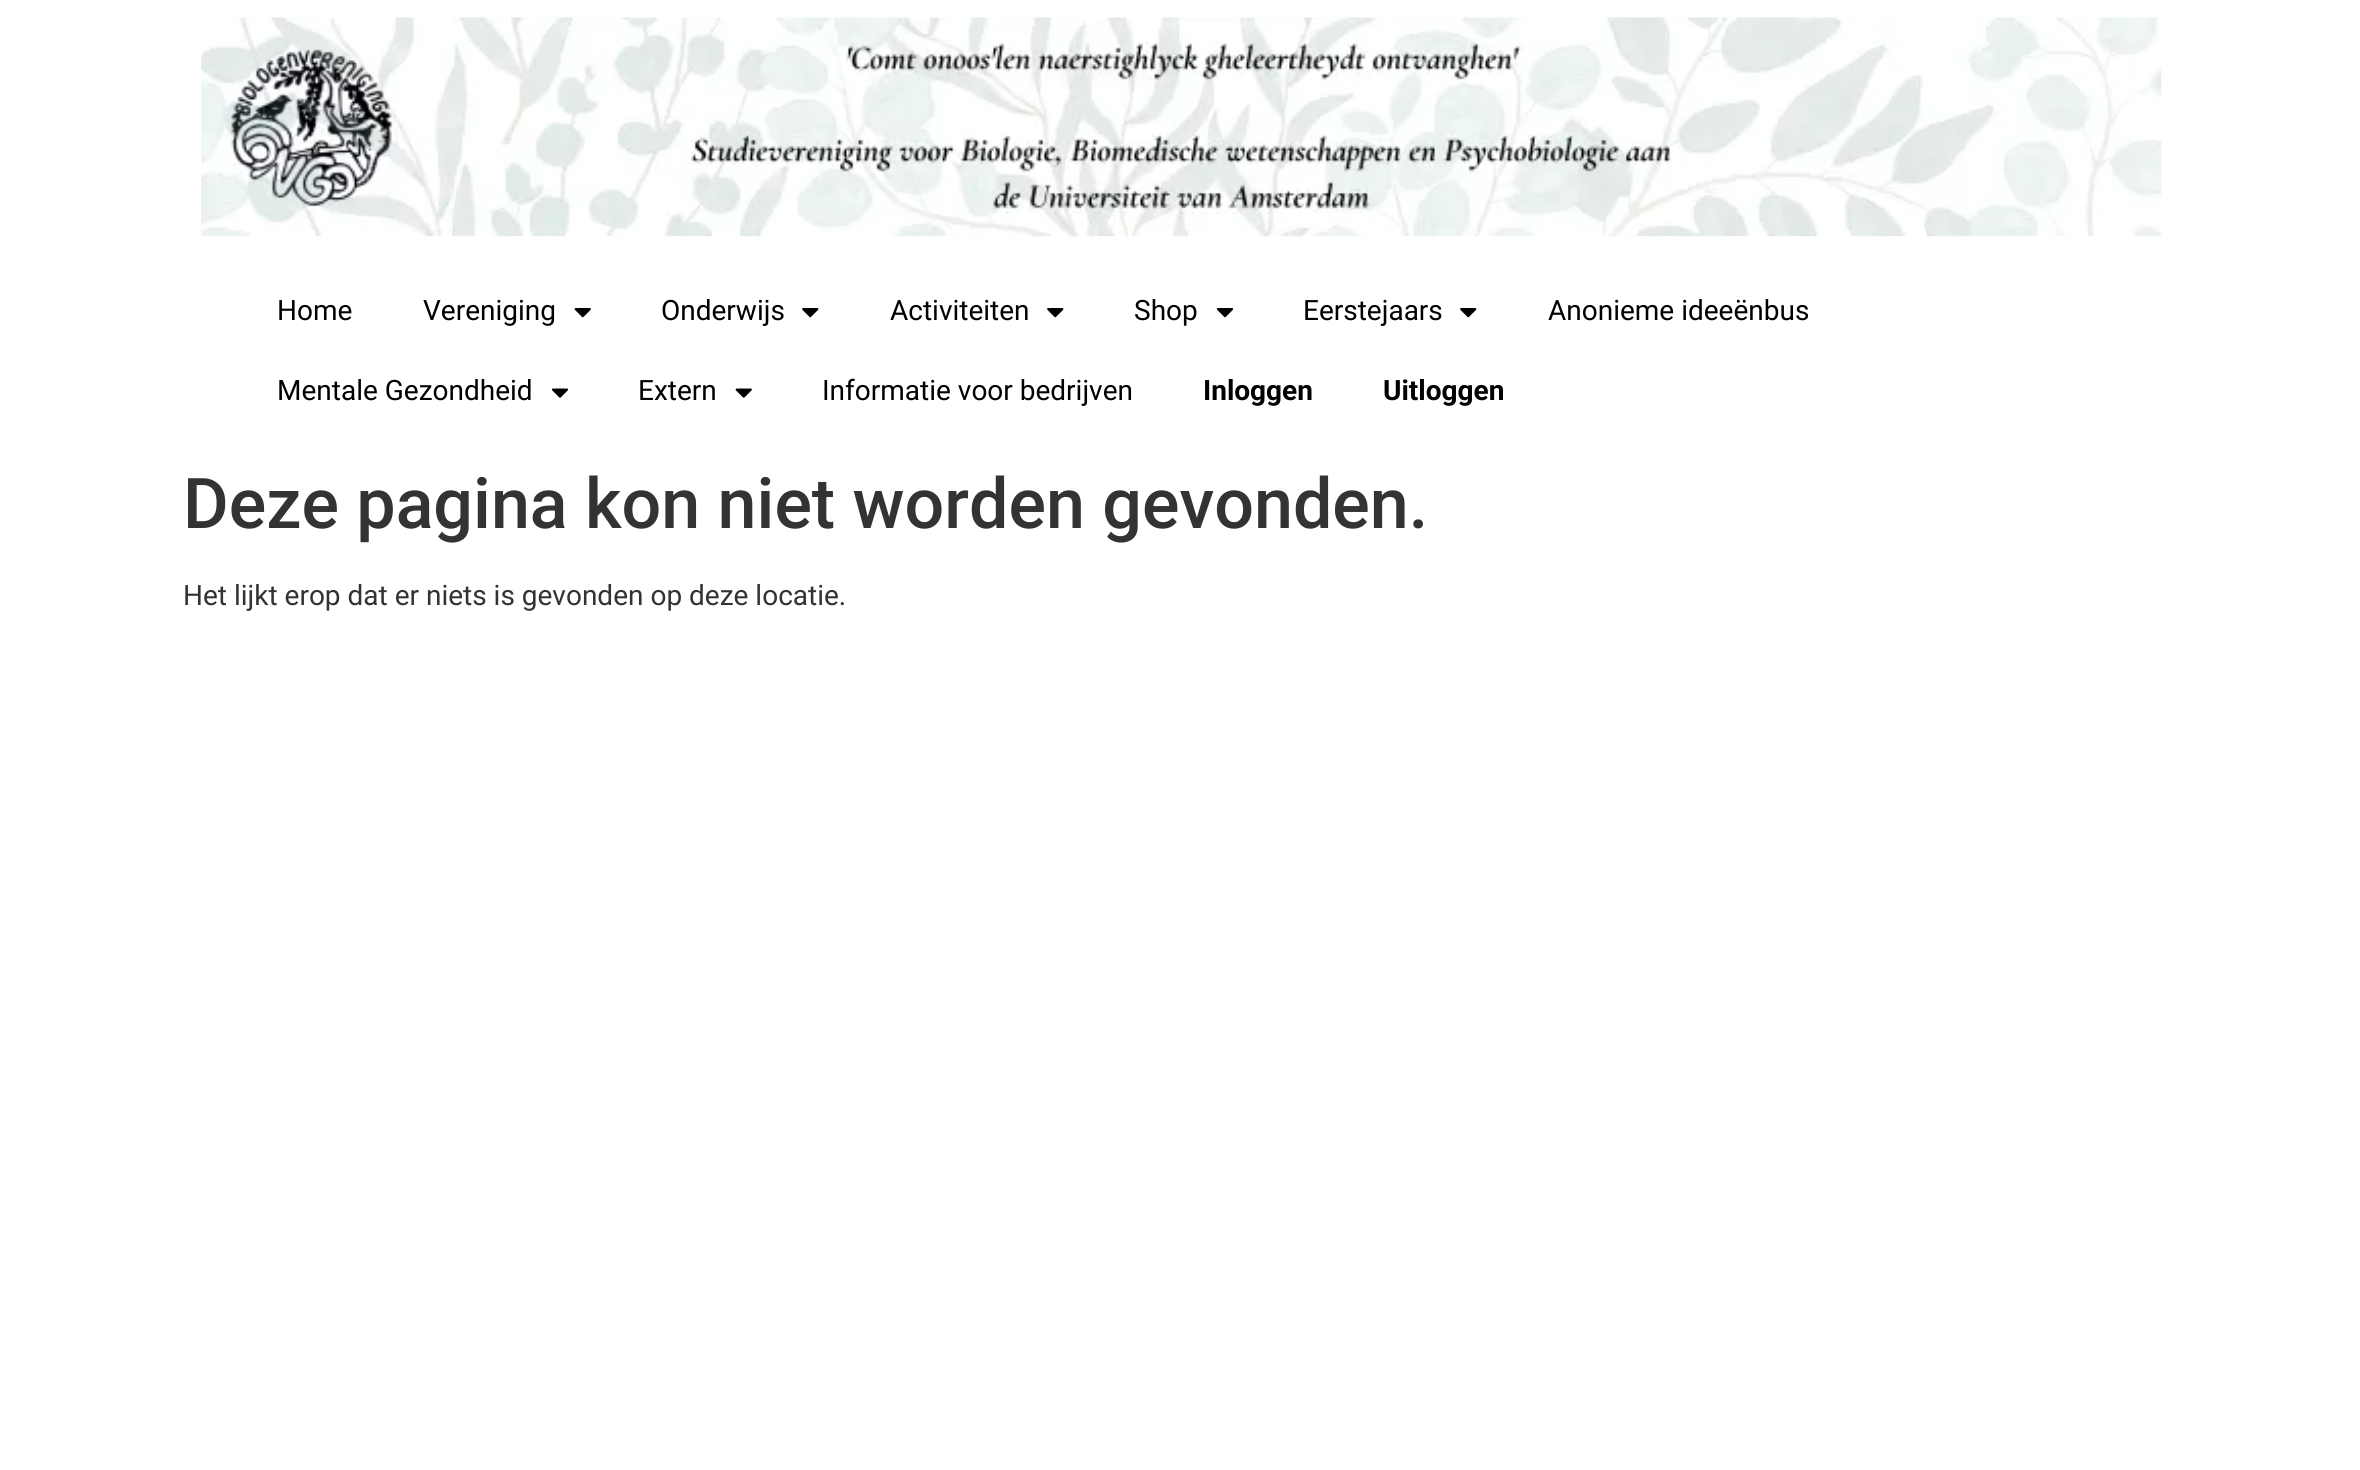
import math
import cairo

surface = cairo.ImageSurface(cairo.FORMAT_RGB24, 2360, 1470)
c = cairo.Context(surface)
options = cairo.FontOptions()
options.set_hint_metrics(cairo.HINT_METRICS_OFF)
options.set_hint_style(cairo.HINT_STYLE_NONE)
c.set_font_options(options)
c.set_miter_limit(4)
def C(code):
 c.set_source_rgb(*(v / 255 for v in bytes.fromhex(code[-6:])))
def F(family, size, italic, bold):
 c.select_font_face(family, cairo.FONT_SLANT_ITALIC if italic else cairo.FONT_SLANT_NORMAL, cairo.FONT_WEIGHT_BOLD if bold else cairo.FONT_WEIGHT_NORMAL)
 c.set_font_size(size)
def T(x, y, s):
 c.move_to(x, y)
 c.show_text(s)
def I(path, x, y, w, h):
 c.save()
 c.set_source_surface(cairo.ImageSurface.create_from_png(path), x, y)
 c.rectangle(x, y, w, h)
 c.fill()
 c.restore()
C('ffffff')
c.paint()
I('1.png',201,17,1961,220)
F('Roboto',28,0,0)
C('020101')
T(277,320,'Home')
T(423,320,'Vereniging')
I('2.png',574,308,17,10)
T(661,320,'Onderwijs')
I('3.png',802,308,17,10)
T(890,320,'Activiteiten')
I('3.png',1047,308,17,10)
T(1134,320,'Shop')
I('4.png',1216,308,18,10)
T(1303,320,'Eerstejaars')
I('3.png',1460,308,17,10)
T(1548,320,'Anonieme ideeënbus')
T(277,400,'Mentale Gezondheid')
I('5.png',551,388,18,10)
T(638,400,'Extern')
I('6.png',735,388,17,10)
T(822,400,'Informatie voor bedrijven')
F('Roboto',28,0,1)
T(1203,400,'Inloggen')
T(1383,400,'Uitloggen')
F('Roboto Medium',70,0,0)
C('333333')
T(183,528,'Deze pagina kon niet worden gevonden.')
F('Roboto',28,0,0)
T(183,605,'Het lijkt erop dat er niets is gevonden op deze locatie.')
surface.write_to_png('o.png')
